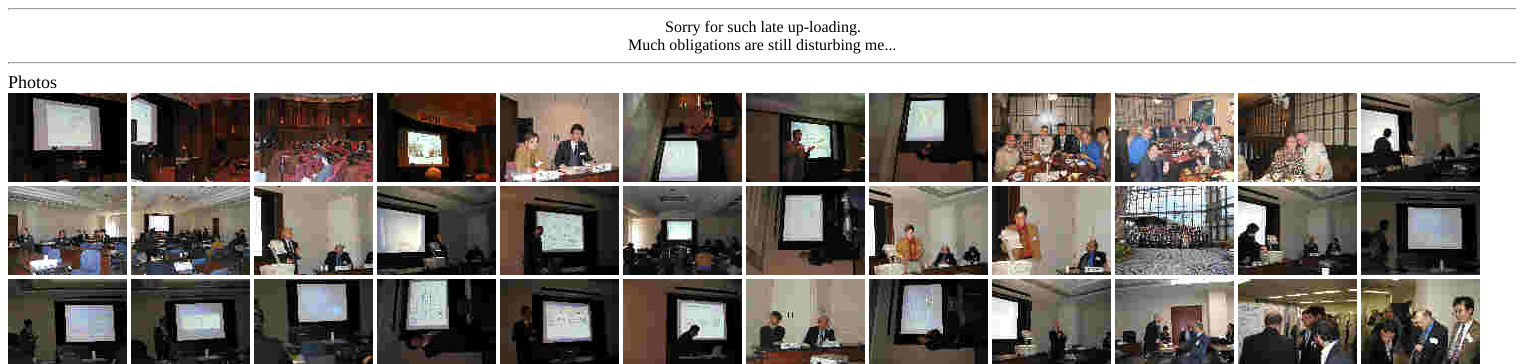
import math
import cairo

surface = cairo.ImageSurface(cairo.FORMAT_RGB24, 1525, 364)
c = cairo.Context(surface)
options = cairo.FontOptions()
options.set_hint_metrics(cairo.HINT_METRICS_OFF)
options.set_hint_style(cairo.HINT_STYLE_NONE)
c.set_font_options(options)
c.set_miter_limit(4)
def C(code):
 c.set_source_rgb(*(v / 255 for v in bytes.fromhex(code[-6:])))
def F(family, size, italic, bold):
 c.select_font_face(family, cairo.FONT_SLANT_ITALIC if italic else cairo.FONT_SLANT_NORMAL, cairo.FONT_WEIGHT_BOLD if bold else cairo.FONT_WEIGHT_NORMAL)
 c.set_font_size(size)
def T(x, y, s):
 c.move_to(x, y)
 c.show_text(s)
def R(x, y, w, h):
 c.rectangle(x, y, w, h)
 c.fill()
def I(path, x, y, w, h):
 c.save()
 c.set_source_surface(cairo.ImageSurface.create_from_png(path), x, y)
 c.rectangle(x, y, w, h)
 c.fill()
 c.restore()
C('ffffff')
c.paint()
C('9f9f9f')
R(8,8,1509,1)
C('eeeeee')
R(1516,8,1,2)
R(8,9,1509,1)
C('9f9f9f')
R(8,8,1,2)
F('Liberation Serif',16,0,0)
C('000000')
T(665,32,'Sorry for such late up-loading.')
T(628,50,'Much obligations are still disturbing me...')
C('9f9f9f')
R(8,62,1509,1)
C('eeeeee')
R(1516,62,1,2)
R(8,63,1509,1)
C('9f9f9f')
R(8,62,1,2)
F('Liberation Serif',18,0,0)
C('000000')
T(8,88,'Photos')
I('1.png',8,93,119,89)
I('2.png',131,93,119,89)
I('3.png',254,93,119,89)
I('4.png',377,93,119,89)
I('5.png',500,93,119,89)
I('6.png',623,93,119,89)
I('7.png',746,93,119,89)
I('8.png',869,93,119,89)
I('9.png',992,93,119,89)
I('10.png',1115,93,119,89)
I('11.png',1238,93,119,89)
I('12.png',1361,93,119,89)
I('13.png',8,186,119,89)
I('14.png',131,186,119,89)
I('15.png',254,186,119,89)
I('16.png',377,186,119,89)
I('17.png',500,186,119,89)
I('18.png',623,186,119,89)
I('19.png',746,186,119,89)
I('20.png',869,186,119,89)
I('21.png',992,186,119,89)
I('22.png',1115,186,119,89)
I('23.png',1238,186,119,89)
I('24.png',1361,186,119,89)
I('25.png',8,279,119,85)
I('26.png',131,279,119,85)
I('27.png',254,279,119,85)
I('28.png',377,279,119,85)
I('29.png',500,279,119,85)
I('30.png',623,279,119,85)
I('31.png',746,279,119,85)
I('32.png',869,279,119,85)
I('33.png',992,279,119,85)
I('34.png',1115,279,119,85)
I('35.png',1238,279,119,85)
I('36.png',1361,279,119,85)
surface.write_to_png('o.png')
